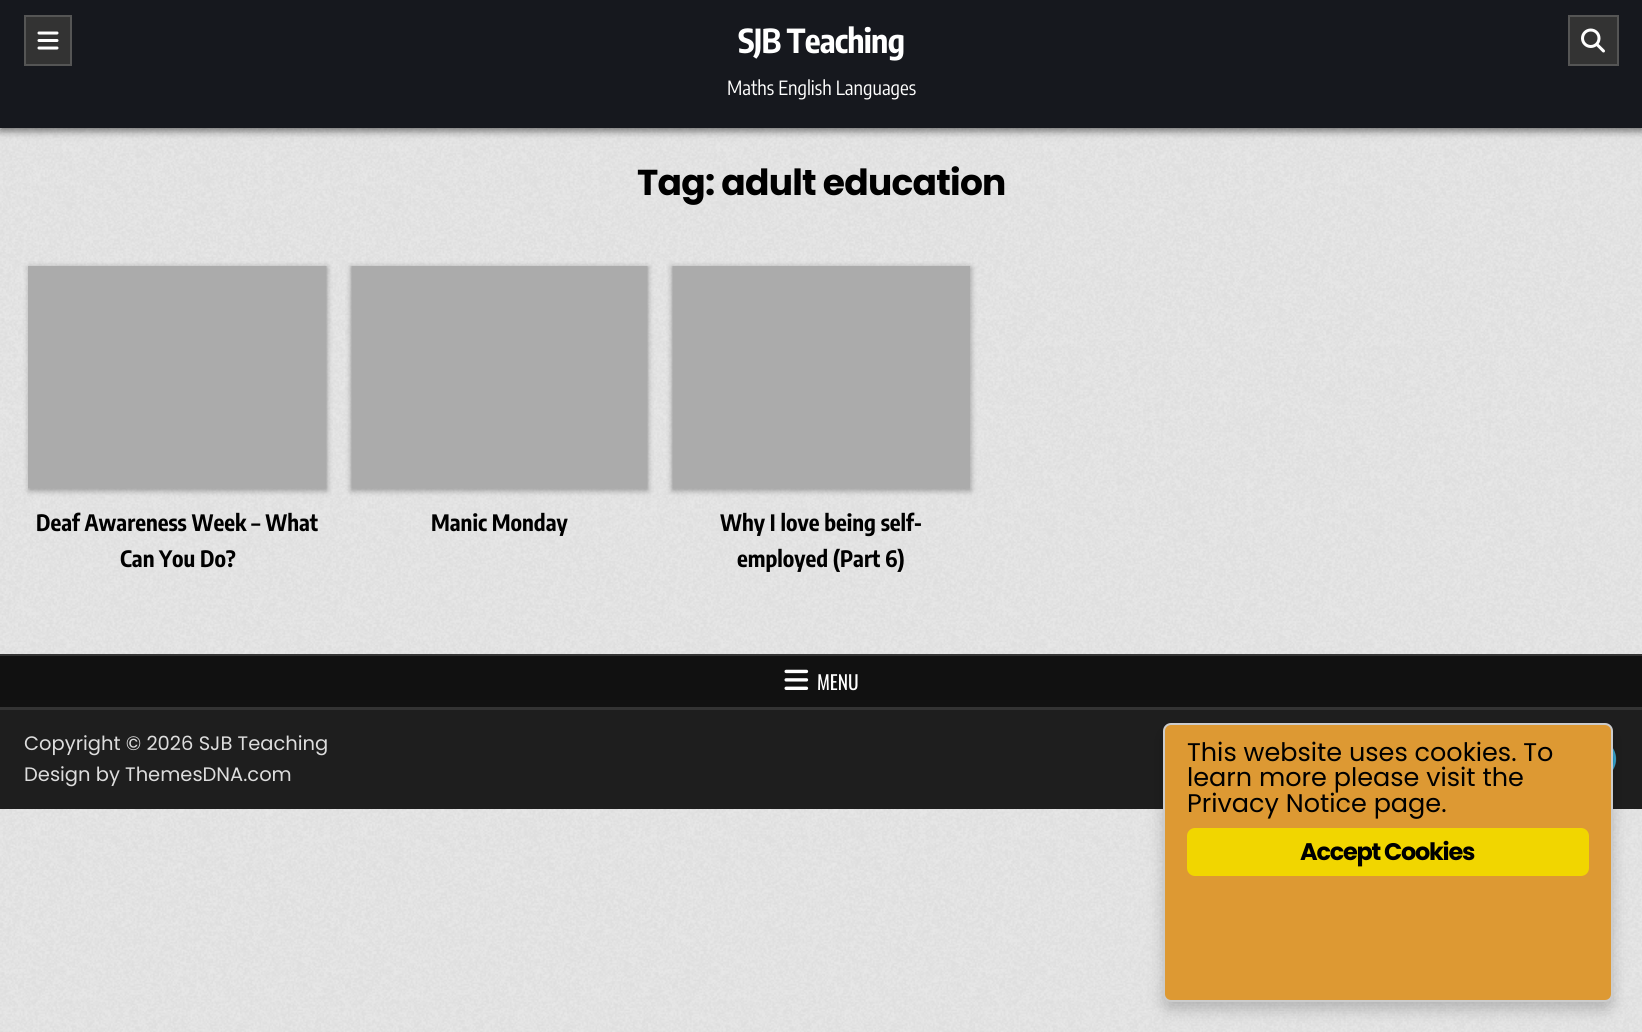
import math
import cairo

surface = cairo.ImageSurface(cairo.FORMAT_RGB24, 1642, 1032)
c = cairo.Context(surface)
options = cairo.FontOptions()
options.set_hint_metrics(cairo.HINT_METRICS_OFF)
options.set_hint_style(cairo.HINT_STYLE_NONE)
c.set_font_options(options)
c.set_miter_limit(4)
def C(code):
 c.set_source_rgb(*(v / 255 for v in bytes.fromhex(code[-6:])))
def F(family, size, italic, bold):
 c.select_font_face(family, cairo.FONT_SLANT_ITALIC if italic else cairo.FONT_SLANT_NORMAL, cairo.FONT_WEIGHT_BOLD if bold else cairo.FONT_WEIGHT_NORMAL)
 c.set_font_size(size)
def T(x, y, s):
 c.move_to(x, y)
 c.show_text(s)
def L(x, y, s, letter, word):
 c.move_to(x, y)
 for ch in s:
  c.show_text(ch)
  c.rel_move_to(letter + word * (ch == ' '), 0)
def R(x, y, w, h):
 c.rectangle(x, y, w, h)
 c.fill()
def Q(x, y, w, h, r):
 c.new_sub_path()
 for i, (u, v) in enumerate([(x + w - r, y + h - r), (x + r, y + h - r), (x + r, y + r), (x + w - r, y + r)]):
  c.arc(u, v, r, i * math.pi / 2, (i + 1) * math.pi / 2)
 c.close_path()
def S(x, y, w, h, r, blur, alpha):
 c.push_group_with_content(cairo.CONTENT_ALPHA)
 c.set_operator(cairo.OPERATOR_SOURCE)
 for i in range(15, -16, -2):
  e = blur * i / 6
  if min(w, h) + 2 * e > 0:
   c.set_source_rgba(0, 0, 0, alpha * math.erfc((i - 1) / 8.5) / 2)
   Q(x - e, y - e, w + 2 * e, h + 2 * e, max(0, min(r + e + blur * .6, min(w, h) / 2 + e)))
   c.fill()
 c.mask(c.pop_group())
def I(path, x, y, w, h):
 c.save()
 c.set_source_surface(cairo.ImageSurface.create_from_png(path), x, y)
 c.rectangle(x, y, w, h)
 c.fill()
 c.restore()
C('ffffff')
c.paint()
I('1.png',0,128,1642,904)
C('000000')
S(0,3,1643,128,0,4,.5)
C('16181e')
R(0,0,1642,128)
C('333333')
c.rectangle(25,16,46,49)
c.fill_preserve()
C('555555')
c.stroke()
I('2.png',37,31,22,19)
F('Encode Sans Condensed',33,0,1)
C('ffffff')
L(738,53,'SJB Teaching',-.75,0)
F('Encode Sans Condensed',19.5,0,0)
T(727,95,'Maths English Languages')
C('333333')
c.rectangle(1569,16,49,49)
c.fill_preserve()
C('555555')
c.stroke()
I('3.png',1581,28,24,25)
F('Poppins',36,0,1)
C('000000')
L(637,195,'Tag: adult education',-.75,0)
C('000000')
S(29,267,298,224,0,3,.3)
I('4.png',28,266,300,224)
F('Encode Sans Condensed',22.5,0,1)
C('000000')
T(36,531,'Deaf Awareness Week – What')
T(120,567,'Can You Do?')
C('000000')
S(351,267,297,224,0,3,.3)
I('5.png',350,266,299,224)
C('000000')
T(431,531,'Manic Monday')
C('000000')
S(672,267,299,224,0,3,.3)
I('6.png',671,266,299,224)
C('000000')
T(720,531,'Why I love being self-')
T(737,567,'employed (Part 6)')
C('111111')
R(0,656,1642,51)
C('333333')
R(0,654,1642,2)
R(0,707,1642,3)
I('7.png',784,669,25,21)
F('Oswald',19.5,0,0)
C('ffffff')
T(817,690,'MENU')
C('1e1e1e')
R(0,710,1642,99)
F('Poppins',19.5,0,0)
C('dddddd')
T(24,750,'Copyright © 2026 SJB Teaching')
T(24,781,'Design by ThemesDNA.com')
C('1796c6')
c.new_path()
c.arc(1595,759,21,0,2 * math.pi)
c.fill()
c.set_source_rgba(1,1,1,0.14)
c.new_path()
c.move_to(1594,741)
c.curve_to(1620,741,1620,779,1595,780)
c.curve_to(1605,780,1614,773,1616,763)
c.curve_to(1617,758,1616,752,1612,747)
c.curve_to(1610,744,1607,741,1603,740)
c.curve_to(1583,731,1565,756,1579,772)
c.curve_to(1571,761,1576,741,1594,741)
c.close_path()
c.fill()
C('000000')
S(1163,731,450,279,8,7.5,.2)
C('dd9933')
Q(1164,724,448,277,7)
c.fill_preserve()
C('cccccc')
c.stroke()
F('Poppins',25.5,0,0)
C('000000')
T(1187,761,'This website uses cookies. To')
T(1187,786,'learn more please visit the')
T(1187,812,'Privacy Notice page.')
C('f1d600')
Q(1187,828,402,48,8)
c.fill()
F('Poppins',24,0,1)
C('000000')
L(1300,860,'Accept Cookies',-1.25,0)
surface.write_to_png('o.png')
